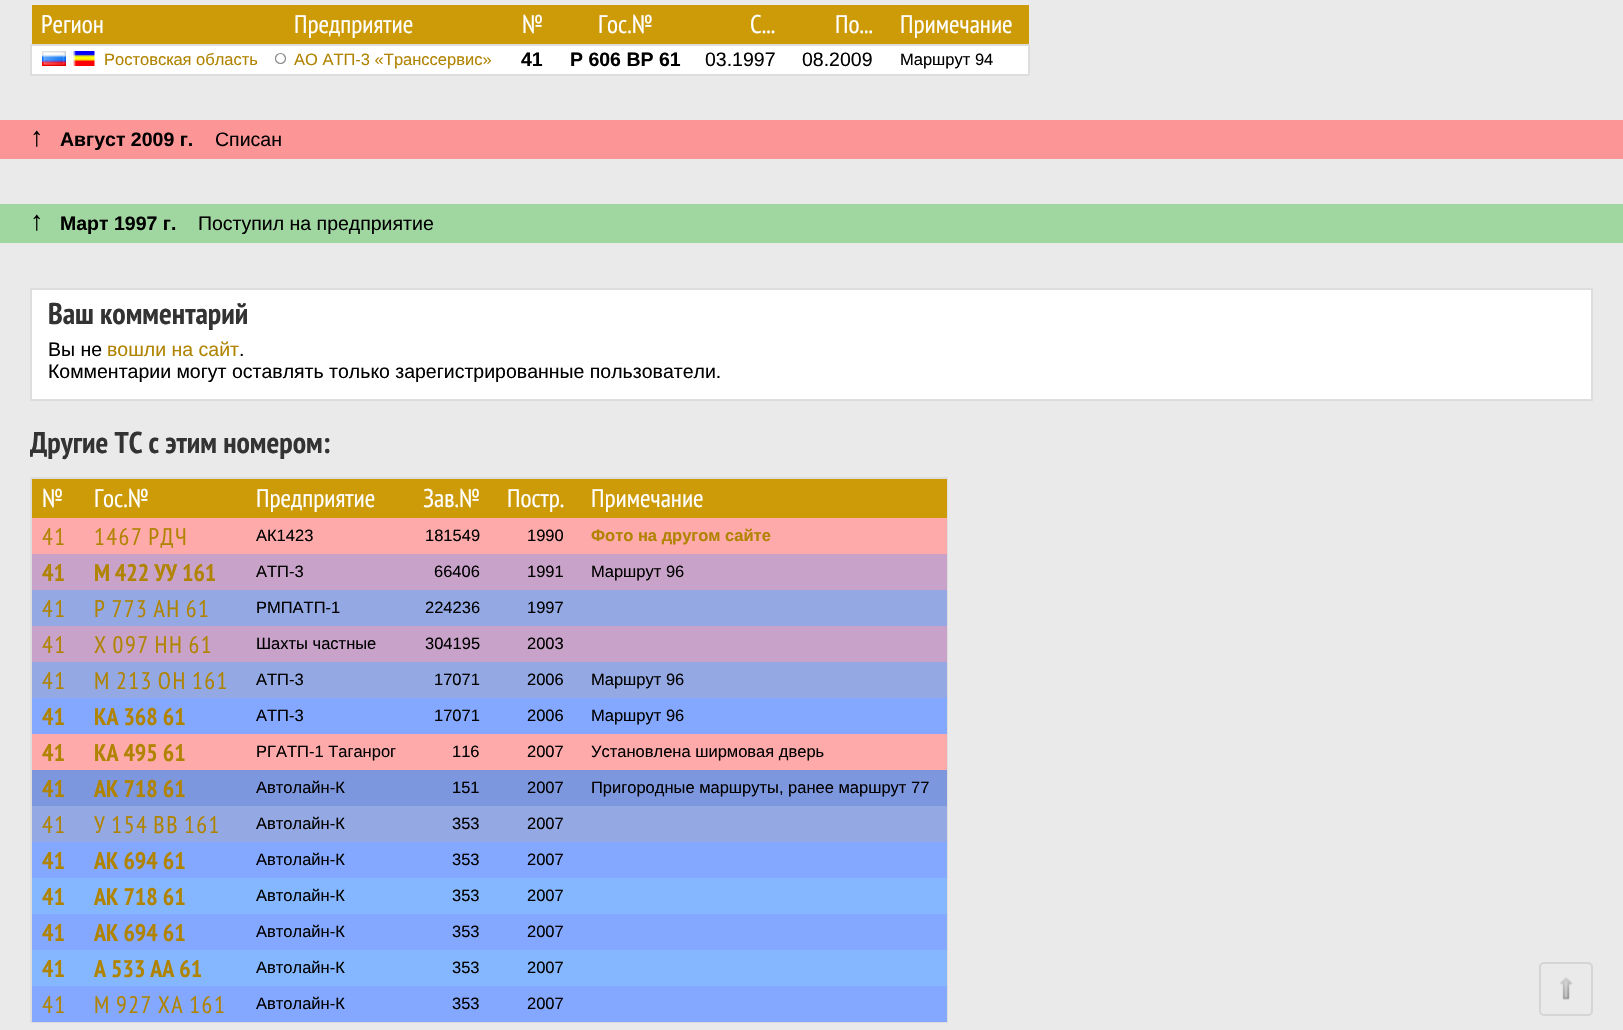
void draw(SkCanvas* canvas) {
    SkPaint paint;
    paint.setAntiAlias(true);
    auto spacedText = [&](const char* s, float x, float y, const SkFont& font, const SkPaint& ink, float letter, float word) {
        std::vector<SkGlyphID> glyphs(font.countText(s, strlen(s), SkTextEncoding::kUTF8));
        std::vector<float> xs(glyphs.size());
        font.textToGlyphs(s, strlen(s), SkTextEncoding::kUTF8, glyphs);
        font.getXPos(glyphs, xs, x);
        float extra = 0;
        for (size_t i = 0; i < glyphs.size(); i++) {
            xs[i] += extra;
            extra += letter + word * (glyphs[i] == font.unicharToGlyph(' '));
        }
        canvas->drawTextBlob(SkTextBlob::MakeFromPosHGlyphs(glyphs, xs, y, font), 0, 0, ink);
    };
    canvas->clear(0xFFEAEAEA);
    paint.setColor(0xFFCD9B08);
    canvas->drawRect(SkRect::MakeXYWH(32, 5, 997, 39), paint);
    SkFont font1(fontMgr->matchFamilyStyle("PT Sans Narrow", SkFontStyle::Normal()), 25.5f);
    font1.setSubpixel(true);
    paint.setColor(0xFFFFFFFF);
    canvas->drawString("Регион", 41, 33, font1, paint);
    canvas->drawString("Предприятие", 294, 33, font1, paint);
    canvas->drawString("№", 522, 33, font1, paint);
    canvas->drawString("Гос.№", 598, 33, font1, paint);
    canvas->drawString("С...", 750, 33, font1, paint);
    canvas->drawString("По...", 835, 33, font1, paint);
    canvas->drawString("Примечание", 900, 33, font1, paint);
    canvas->drawRect(SkRect::MakeXYWH(32, 46, 996, 28), paint);
    paint.setColor(0xFFDDDDDD);
    canvas->drawRect(SkRect::MakeXYWH(30, 44, 999, 2), paint);
    canvas->drawRect(SkRect::MakeXYWH(1028, 44, 2, 31), paint);
    canvas->drawRect(SkRect::MakeXYWH(30, 74, 999, 2), paint);
    canvas->drawRect(SkRect::MakeXYWH(30, 44, 2, 31), paint);
    canvas->drawImageRect(SkImages::DeferredFromEncodedData(SkData::MakeFromFileName("img1.png")), SkRect::MakeXYWH(42, 51, 24, 15), SkSamplingOptions());
    canvas->drawImageRect(SkImages::DeferredFromEncodedData(SkData::MakeFromFileName("img2.png")), SkRect::MakeXYWH(70, 51, 25, 15), SkSamplingOptions());
    SkFont font2(fontMgr->matchFamilyStyle("Liberation Sans", SkFontStyle::Normal()), 16.5f);
    font2.setSubpixel(true);
    paint.setColor(0xFFB08300);
    canvas->drawString("Ростовская область", 104, 65, font2, paint);
    paint.setStyle(SkPaint::kStroke_Style);
    paint.setStrokeWidth(1.2f);
    paint.setColor(0xFF888888);
    canvas->drawCircle(280.5f, 58.5f, 5, paint);
    paint.setStyle(SkPaint::kFill_Style);
    paint.setColor(0xFFB08300);
    canvas->drawString("АО АТП-3 «Транссервис»", 294, 65, font2, paint);
    SkFont font3(fontMgr->matchFamilyStyle("Liberation Sans", SkFontStyle::Bold()), 19.5f);
    font3.setSubpixel(true);
    paint.setColor(0xFF000000);
    canvas->drawString("41", 521, 66, font3, paint);
    canvas->drawString("Р 606 ВР 61", 570, 66, font3, paint);
    SkFont font4(fontMgr->matchFamilyStyle("Liberation Sans", SkFontStyle::Normal()), 19.5f);
    font4.setSubpixel(true);
    canvas->drawString("03.1997", 705, 66, font4, paint);
    canvas->drawString("08.2009", 802, 66, font4, paint);
    canvas->drawString("Маршрут 94", 900, 65, font2, paint);
    paint.setColor(0xFFFC9595);
    canvas->drawRect(SkRect::MakeXYWH(0, 120, 1623, 39), paint);
    SkFont font5(fontMgr->matchFamilyStyle("Liberation Sans", SkFontStyle::Normal()), 27);
    font5.setSubpixel(true);
    paint.setColor(0xFF000000);
    canvas->drawString("↑", 30, 146, font5, paint);
    canvas->drawString("Август 2009 г.", 60, 146, font3, paint);
    canvas->drawString("Списан", 215, 146, font4, paint);
    paint.setColor(0xFFA0D6A0);
    canvas->drawRect(SkRect::MakeXYWH(0, 204, 1623, 39), paint);
    paint.setColor(0xFF000000);
    canvas->drawString("↑", 30, 230, font5, paint);
    canvas->drawString("Март 1997 г.", 60, 230, font3, paint);
    canvas->drawString("Поступил на предприятие", 198, 230, font4, paint);
    paint.setColor(0xFFFFFFFF);
    canvas->drawRect(SkRect::MakeXYWH(31, 289, 1561, 111), paint);
    paint.setStyle(SkPaint::kStroke_Style);
    paint.setStrokeWidth(2);
    paint.setColor(0xFFDDDDDD);
    canvas->drawRect(SkRect::MakeXYWH(31, 289, 1561, 111), paint);
    SkFont font6(fontMgr->matchFamilyStyle("PT Sans Narrow", SkFontStyle::Bold()), 30);
    font6.setSubpixel(true);
    paint.setStyle(SkPaint::kFill_Style);
    paint.setColor(0xFF333333);
    canvas->drawString("Ваш комментарий", 48, 324, font6, paint);
    paint.setColor(0xFF000000);
    canvas->drawString("Вы не", 48, 356, font4, paint);
    paint.setColor(0xFFB08300);
    canvas->drawString("вошли на сайт", 107, 356, font4, paint);
    paint.setColor(0xFF000000);
    canvas->drawString(".", 239, 356, font4, paint);
    canvas->drawString("Комментарии могут оставлять только зарегистрированные пользователи.", 48, 378, font4, paint);
    paint.setColor(0xFF333333);
    canvas->drawString("Другие ТС с этим номером:", 30, 453, font6, paint);
    paint.setStyle(SkPaint::kStroke_Style);
    paint.setColor(0xFFDDDDDD);
    canvas->drawRect(SkRect::MakeXYWH(31, 478, 916, 544), paint);
    paint.setStyle(SkPaint::kFill_Style);
    paint.setColor(0xFFCD9B08);
    canvas->drawRect(SkRect::MakeXYWH(32, 479, 915, 39), paint);
    paint.setColor(0xFFFFFFFF);
    canvas->drawString("№", 42, 507, font1, paint);
    canvas->drawString("Гос.№", 94, 507, font1, paint);
    canvas->drawString("Предприятие", 256, 507, font1, paint);
    canvas->drawString("Зав.№", 423, 507, font1, paint);
    canvas->drawString("Постр.", 507, 507, font1, paint);
    canvas->drawString("Примечание", 591, 507, font1, paint);
    paint.setColor(0xFFFFAAAA);
    canvas->drawRect(SkRect::MakeXYWH(32, 518, 915, 36), paint);
    SkFont font7(fontMgr->matchFamilyStyle("PT Sans Narrow", SkFontStyle::Normal()), 24);
    font7.setSubpixel(true);
    paint.setColor(0xFFB08300);
    spacedText("41", 42, 545, font7, paint, 1.5f, 0);
    spacedText("1467 РДЧ", 94, 545, font7, paint, 1.5f, -1.5f);
    paint.setColor(0xFF000000);
    canvas->drawString("АК1423", 256, 541, font2, paint);
    canvas->drawString("181549", 425, 541, font2, paint);
    canvas->drawString("1990", 527, 541, font2, paint);
    SkFont font8(fontMgr->matchFamilyStyle("Liberation Sans", SkFontStyle::Bold()), 16.5f);
    font8.setSubpixel(true);
    paint.setColor(0xFFB08300);
    canvas->drawString("Фото на другом сайте", 591, 541, font8, paint);
    paint.setColor(0xFFC8A2C8);
    canvas->drawRect(SkRect::MakeXYWH(32, 554, 915, 36), paint);
    SkFont font9(fontMgr->matchFamilyStyle("PT Sans Narrow", SkFontStyle::Bold()), 24);
    font9.setSubpixel(true);
    paint.setColor(0xFFB08300);
    canvas->drawString("41", 42, 581, font9, paint);
    canvas->drawString("М 422 УУ 161", 94, 581, font9, paint);
    paint.setColor(0xFF000000);
    canvas->drawString("АТП-3", 256, 577, font2, paint);
    canvas->drawString("66406", 434, 577, font2, paint);
    canvas->drawString("1991", 527, 577, font2, paint);
    canvas->drawString("Маршрут 96", 591, 577, font2, paint);
    paint.setColor(0xFF94A9E3);
    canvas->drawRect(SkRect::MakeXYWH(32, 590, 915, 36), paint);
    paint.setColor(0xFFB08300);
    spacedText("41", 42, 617, font7, paint, 1.5f, 0);
    spacedText("Р 773 АН 61", 94, 617, font7, paint, 1.5f, -1.5f);
    paint.setColor(0xFF000000);
    canvas->drawString("РМПАТП-1", 256, 613, font2, paint);
    canvas->drawString("224236", 425, 613, font2, paint);
    canvas->drawString("1997", 527, 613, font2, paint);
    paint.setColor(0xFFC8A2C8);
    canvas->drawRect(SkRect::MakeXYWH(32, 626, 915, 36), paint);
    paint.setColor(0xFFB08300);
    spacedText("41", 42, 653, font7, paint, 1.5f, 0);
    spacedText("Х 097 НН 61", 94, 653, font7, paint, 1.5f, -1.5f);
    paint.setColor(0xFF000000);
    canvas->drawString("Шахты частные", 256, 649, font2, paint);
    canvas->drawString("304195", 425, 649, font2, paint);
    canvas->drawString("2003", 527, 649, font2, paint);
    paint.setColor(0xFF94A9E3);
    canvas->drawRect(SkRect::MakeXYWH(32, 662, 915, 36), paint);
    paint.setColor(0xFFB08300);
    spacedText("41", 42, 689, font7, paint, 1.5f, 0);
    spacedText("М 213 ОН 161", 94, 689, font7, paint, 1.5f, -1.5f);
    paint.setColor(0xFF000000);
    canvas->drawString("АТП-3", 256, 685, font2, paint);
    canvas->drawString("17071", 434, 685, font2, paint);
    canvas->drawString("2006", 527, 685, font2, paint);
    canvas->drawString("Маршрут 96", 591, 685, font2, paint);
    paint.setColor(0xFF84A8FF);
    canvas->drawRect(SkRect::MakeXYWH(32, 698, 915, 36), paint);
    paint.setColor(0xFFB08300);
    canvas->drawString("41", 42, 725, font9, paint);
    canvas->drawString("КА 368 61", 94, 725, font9, paint);
    paint.setColor(0xFF000000);
    canvas->drawString("АТП-3", 256, 721, font2, paint);
    canvas->drawString("17071", 434, 721, font2, paint);
    canvas->drawString("2006", 527, 721, font2, paint);
    canvas->drawString("Маршрут 96", 591, 721, font2, paint);
    paint.setColor(0xFFFFAAAA);
    canvas->drawRect(SkRect::MakeXYWH(32, 734, 915, 36), paint);
    paint.setColor(0xFFB08300);
    canvas->drawString("41", 42, 761, font9, paint);
    canvas->drawString("КА 495 61", 94, 761, font9, paint);
    paint.setColor(0xFF000000);
    canvas->drawString("РГАТП-1 Таганрог", 256, 757, font2, paint);
    canvas->drawString("116", 452, 757, font2, paint);
    canvas->drawString("2007", 527, 757, font2, paint);
    canvas->drawString("Установлена ширмовая дверь", 591, 757, font2, paint);
    paint.setColor(0xFF7D97DF);
    canvas->drawRect(SkRect::MakeXYWH(32, 770, 915, 36), paint);
    paint.setColor(0xFFB08300);
    canvas->drawString("41", 42, 797, font9, paint);
    canvas->drawString("АК 718 61", 94, 797, font9, paint);
    paint.setColor(0xFF000000);
    canvas->drawString("Автолайн-К", 256, 793, font2, paint);
    canvas->drawString("151", 452, 793, font2, paint);
    canvas->drawString("2007", 527, 793, font2, paint);
    canvas->drawString("Пригородные маршруты, ранее маршрут 77", 591, 793, font2, paint);
    paint.setColor(0xFF94A9E3);
    canvas->drawRect(SkRect::MakeXYWH(32, 806, 915, 36), paint);
    paint.setColor(0xFFB08300);
    spacedText("41", 42, 833, font7, paint, 1.5f, 0);
    spacedText("У 154 ВВ 161", 94, 833, font7, paint, 1.5f, -1.5f);
    paint.setColor(0xFF000000);
    canvas->drawString("Автолайн-К", 256, 829, font2, paint);
    canvas->drawString("353", 452, 829, font2, paint);
    canvas->drawString("2007", 527, 829, font2, paint);
    paint.setColor(0xFF84A8FF);
    canvas->drawRect(SkRect::MakeXYWH(32, 842, 915, 36), paint);
    paint.setColor(0xFFB08300);
    canvas->drawString("41", 42, 869, font9, paint);
    canvas->drawString("АК 694 61", 94, 869, font9, paint);
    paint.setColor(0xFF000000);
    canvas->drawString("Автолайн-К", 256, 865, font2, paint);
    canvas->drawString("353", 452, 865, font2, paint);
    canvas->drawString("2007", 527, 865, font2, paint);
    paint.setColor(0xFF84B7FF);
    canvas->drawRect(SkRect::MakeXYWH(32, 878, 915, 36), paint);
    paint.setColor(0xFFB08300);
    canvas->drawString("41", 42, 905, font9, paint);
    canvas->drawString("АК 718 61", 94, 905, font9, paint);
    paint.setColor(0xFF000000);
    canvas->drawString("Автолайн-К", 256, 901, font2, paint);
    canvas->drawString("353", 452, 901, font2, paint);
    canvas->drawString("2007", 527, 901, font2, paint);
    paint.setColor(0xFF84A8FF);
    canvas->drawRect(SkRect::MakeXYWH(32, 914, 915, 36), paint);
    paint.setColor(0xFFB08300);
    canvas->drawString("41", 42, 941, font9, paint);
    canvas->drawString("АК 694 61", 94, 941, font9, paint);
    paint.setColor(0xFF000000);
    canvas->drawString("Автолайн-К", 256, 937, font2, paint);
    canvas->drawString("353", 452, 937, font2, paint);
    canvas->drawString("2007", 527, 937, font2, paint);
    paint.setColor(0xFF84B7FF);
    canvas->drawRect(SkRect::MakeXYWH(32, 950, 915, 36), paint);
    paint.setColor(0xFFB08300);
    canvas->drawString("41", 42, 977, font9, paint);
    canvas->drawString("А 533 АА 61", 94, 977, font9, paint);
    paint.setColor(0xFF000000);
    canvas->drawString("Автолайн-К", 256, 973, font2, paint);
    canvas->drawString("353", 452, 973, font2, paint);
    canvas->drawString("2007", 527, 973, font2, paint);
    paint.setColor(0xFF84A8FF);
    canvas->drawRect(SkRect::MakeXYWH(32, 986, 915, 36), paint);
    paint.setColor(0xFFB08300);
    spacedText("41", 42, 1013, font7, paint, 1.5f, 0);
    spacedText("М 927 ХА 161", 94, 1013, font7, paint, 1.5f, -1.5f);
    paint.setColor(0xFF000000);
    canvas->drawString("Автолайн-К", 256, 1009, font2, paint);
    canvas->drawString("353", 452, 1009, font2, paint);
    canvas->drawString("2007", 527, 1009, font2, paint);
    canvas->drawImageRect(SkImages::DeferredFromEncodedData(SkData::MakeFromFileName("img3.png")), SkRect::MakeXYWH(1560, 977, 13, 23), SkSamplingOptions());
    paint.setStyle(SkPaint::kStroke_Style);
    paint.setColor(0xFFD5D5D5);
    canvas->drawRoundRect(SkRect::MakeXYWH(1540, 963, 52, 52), 4, 4, paint);
}
